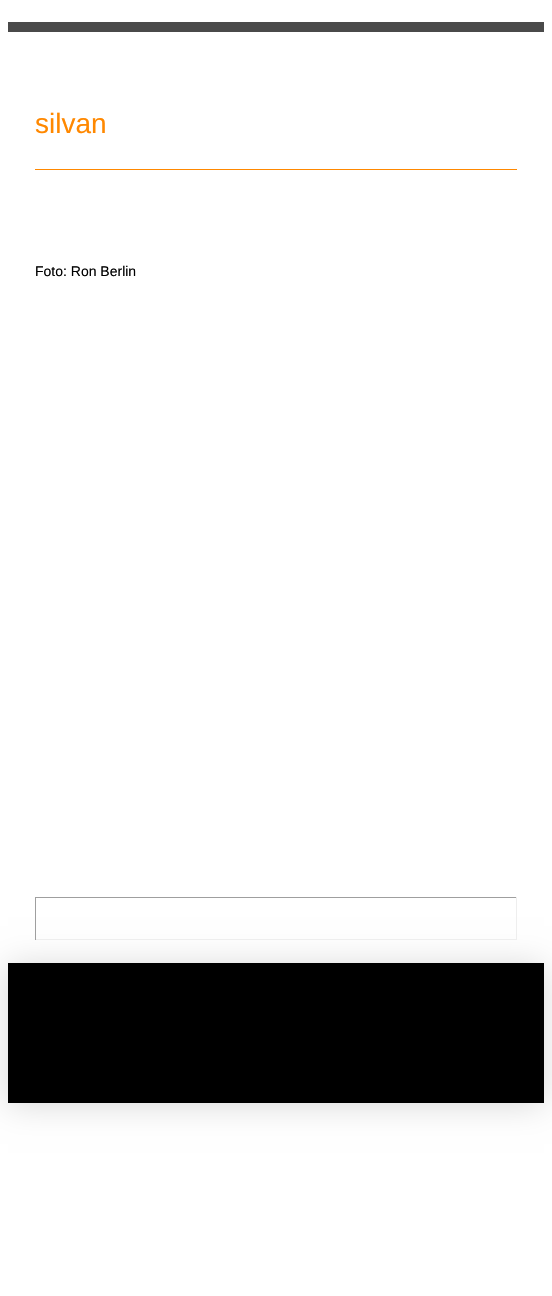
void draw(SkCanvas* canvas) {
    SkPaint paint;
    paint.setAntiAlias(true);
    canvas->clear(0xFFFFFFFF);
    paint.setColor(0xFF4A4A4A);
    canvas->drawRect(SkRect::MakeXYWH(8, 22, 536, 10), paint);
    SkFont font1(fontMgr->matchFamilyStyle("Liberation Sans", SkFontStyle::Normal()), 28);
    font1.setSubpixel(true);
    paint.setColor(0xFFFF8800);
    canvas->drawString("silvan", 35, 133, font1, paint);
    canvas->drawRect(SkRect::MakeXYWH(35, 169, 482, 1), paint);
    SkFont font2(fontMgr->matchFamilyStyle("Liberation Sans", SkFontStyle::Normal()), 14);
    font2.setSubpixel(true);
    paint.setColor(0xFF000000);
    canvas->drawString("Foto: Ron Berlin", 35, 276, font2, paint);
    paint.setColor(0xFF9F9F9F);
    canvas->drawRect(SkRect::MakeXYWH(35, 897, 482, 1), paint);
    paint.setColor(0x26000000);
    paint.setMaskFilter(SkMaskFilter::MakeBlur(kNormal_SkBlurStyle, 16));
    canvas->drawRect(SkRect::MakeXYWH(8, 965, 536, 140), paint);
    paint.setMaskFilter(nullptr);
    paint.setColor(0xFFEEEEEE);
    canvas->drawRect(SkRect::MakeXYWH(516, 897, 1, 43), paint);
    canvas->drawRect(SkRect::MakeXYWH(35, 939, 482, 1), paint);
    paint.setColor(0xFF9F9F9F);
    canvas->drawRect(SkRect::MakeXYWH(35, 897, 1, 43), paint);
    paint.setColor(0xFF000000);
    canvas->drawRect(SkRect::MakeXYWH(8, 963, 536, 140), paint);
}
